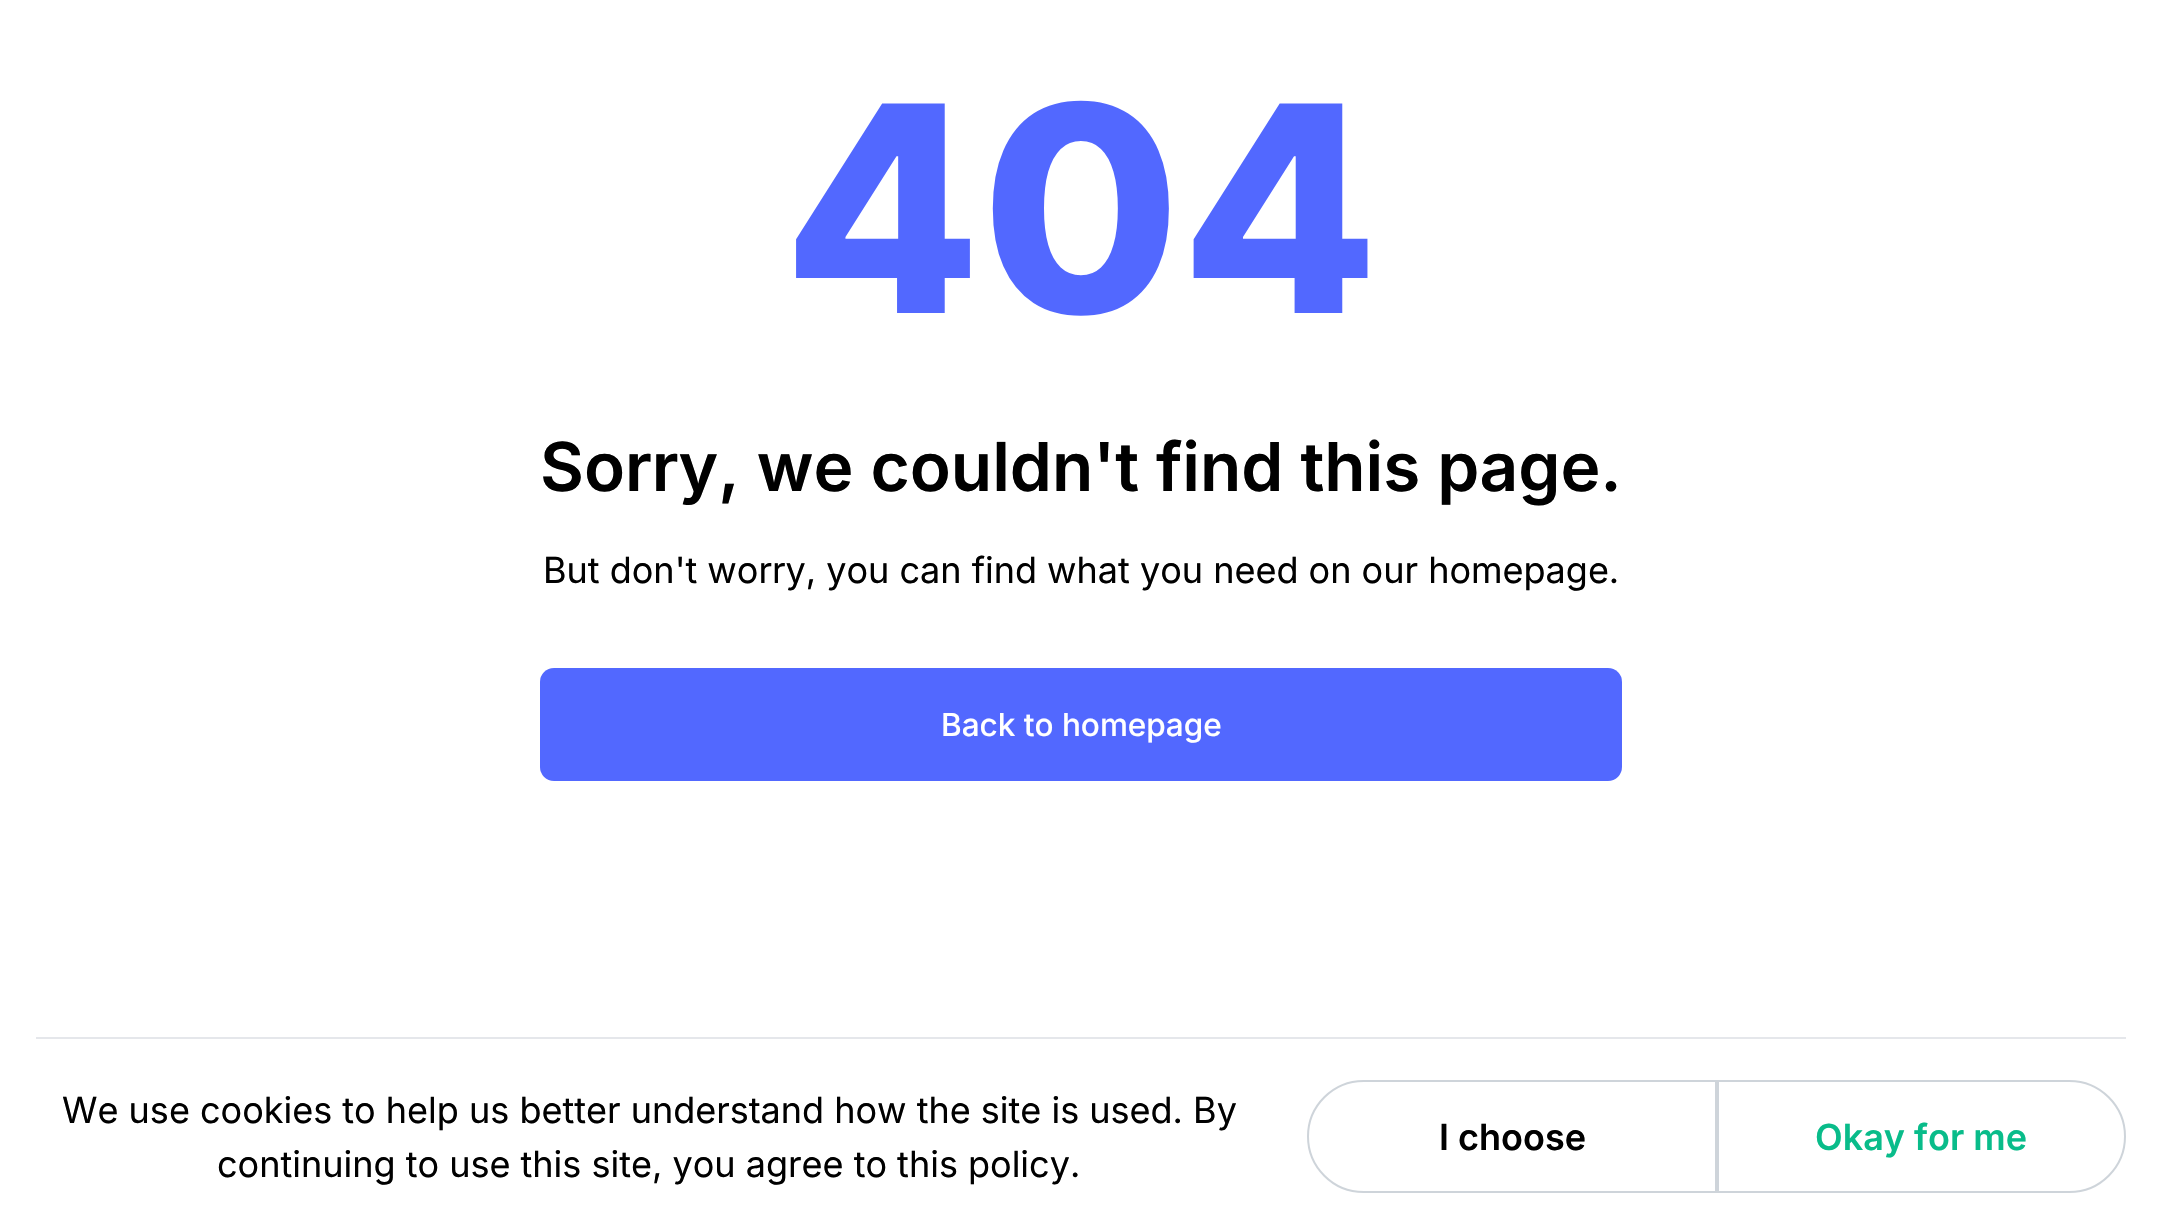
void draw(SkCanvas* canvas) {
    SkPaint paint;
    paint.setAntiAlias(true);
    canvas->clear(0xFFFFFFFF);
    SkFont font1(fontMgr->matchFamilyStyle("Inter", SkFontStyle(800, SkFontStyle::kNormal_Width, SkFontStyle::kUpright_Slant)), 288);
    font1.setSubpixel(true);
    paint.setColor(0xFF5268FF);
    canvas->drawString("404", 783, 313, font1, paint);
    SkFont font2(fontMgr->matchFamilyStyle("Inter", SkFontStyle(600, SkFontStyle::kNormal_Width, SkFontStyle::kUpright_Slant)), 67.5f);
    font2.setSubpixel(true);
    paint.setColor(0xFF000000);
    canvas->drawString("Sorry, we couldn't find this page.", 540, 491, font2, paint);
    SkFont font3(fontMgr->matchFamilyStyle("Inter", SkFontStyle::Normal()), 36);
    font3.setSubpixel(true);
    canvas->drawString("But don't worry, you can find what you need on our homepage.", 543, 583, font3, paint);
    paint.setColor(0xFF5268FF);
    canvas->drawRoundRect(SkRect::MakeXYWH(540, 668, 1082, 113), 14, 14, paint);
    SkFont font4(fontMgr->matchFamilyStyle("Inter", SkFontStyle(500, SkFontStyle::kNormal_Width, SkFontStyle::kUpright_Slant)), 31.5f);
    font4.setSubpixel(true);
    paint.setColor(0xFFFFFFFF);
    canvas->drawString("Back to homepage", 941, 736, font4, paint);
    paint.setColor(0xFFE5E7EB);
    canvas->drawRect(SkRect::MakeXYWH(36, 1037, 2090, 2), paint);
    paint.setColor(0xFF000000);
    canvas->drawString("We use cookies to help us better understand how the site is used. By", 62, 1123, font3, paint);
    canvas->drawString("continuing to use this site, you agree to this policy.", 217, 1177, font3, paint);
    paint.setStyle(SkPaint::kStroke_Style);
    paint.setStrokeWidth(2);
    paint.setColor(0xFFCED4DA);
    canvas->drawPath(SkPathBuilder().moveTo(1363.5f, 1081).lineTo(1716, 1081).lineTo(1716, 1192).lineTo(1363.5f, 1192).cubicTo(1333, 1192, 1308, 1167, 1308, 1136.5f).cubicTo(1308, 1106, 1333, 1081, 1363.5f, 1081).close().detach(), paint);
    SkFont font5(fontMgr->matchFamilyStyle("Inter", SkFontStyle(600, SkFontStyle::kNormal_Width, SkFontStyle::kUpright_Slant)), 36);
    font5.setSubpixel(true);
    paint.setStyle(SkPaint::kFill_Style);
    paint.setColor(0xFF000000);
    canvas->drawString("I choose", 1439, 1150, font5, paint);
    paint.setStyle(SkPaint::kStroke_Style);
    paint.setColor(0xFFCED4DA);
    canvas->drawPath(SkPathBuilder().moveTo(1718, 1081).lineTo(2069.5f, 1081).cubicTo(2100, 1081, 2125, 1106, 2125, 1136.5f).cubicTo(2125, 1167, 2100, 1192, 2069.5f, 1192).lineTo(1718, 1192).close().detach(), paint);
    paint.setStyle(SkPaint::kFill_Style);
    paint.setColor(0xFF09BC8A);
    canvas->drawString("Okay for me", 1815, 1150, font5, paint);
}
